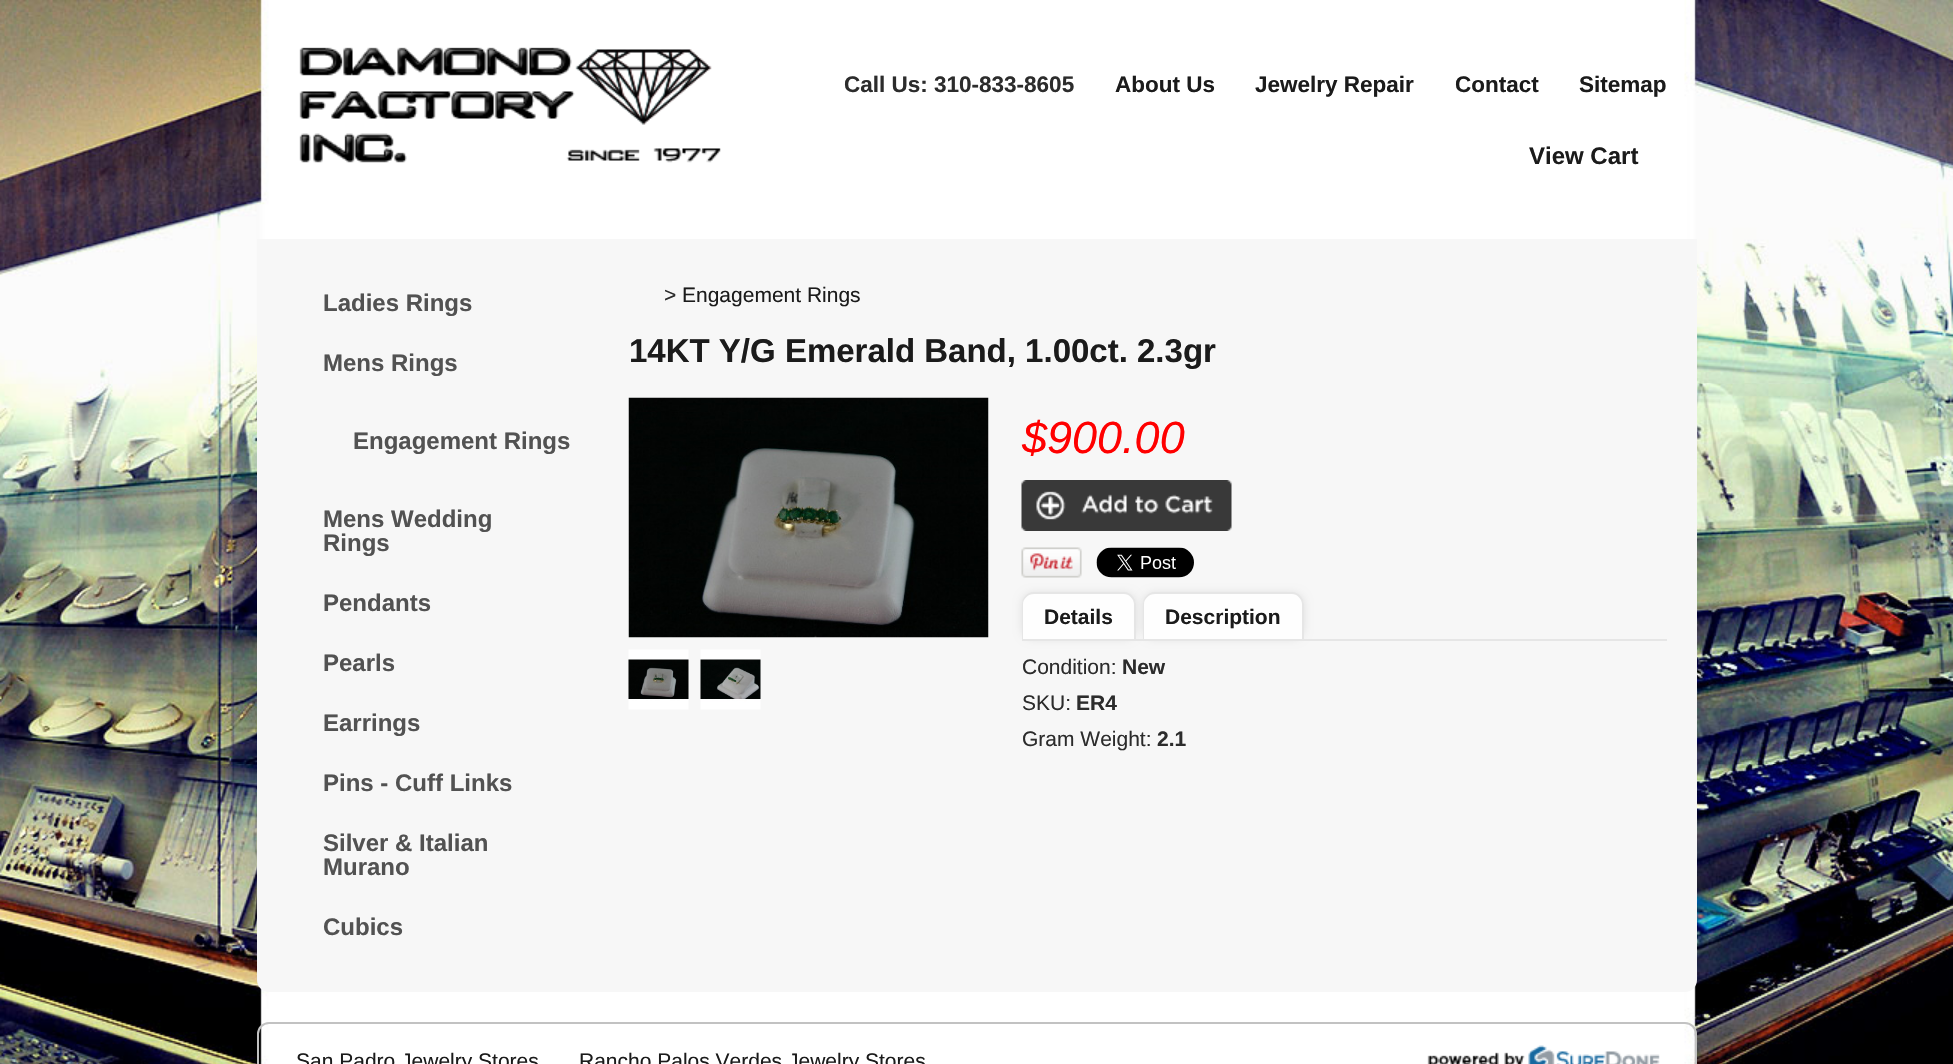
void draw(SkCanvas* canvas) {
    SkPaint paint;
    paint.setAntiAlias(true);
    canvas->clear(0xFFFFFFFF);
    canvas->drawImageRect(SkImages::DeferredFromEncodedData(SkData::MakeFromFileName("img1.png")), SkRect::MakeXYWH(0, 0, 1953, 1064), SkSamplingOptions());
    canvas->drawImageRect(SkImages::DeferredFromEncodedData(SkData::MakeFromFileName("img2.png")), SkRect::MakeXYWH(299, 47, 422, 116), SkSamplingOptions());
    SkFont font1(fontMgr->matchFamilyStyle("Liberation Sans", SkFontStyle::Bold()), 22.5f);
    font1.setSubpixel(true);
    paint.setColor(0xFF2C2C2C);
    canvas->drawString("Call Us: 310-833-8605", 844, 92, font1, paint);
    paint.setColor(0xFF1B1B1B);
    canvas->drawString("About Us", 1115, 92, font1, paint);
    canvas->drawString("Jewelry Repair", 1255, 92, font1, paint);
    canvas->drawString("Contact", 1455, 92, font1, paint);
    canvas->drawString("Sitemap", 1579, 92, font1, paint);
    SkFont font2(fontMgr->matchFamilyStyle("Liberation Sans", SkFontStyle::Bold()), 24);
    font2.setSubpixel(true);
    canvas->drawString("View Cart", 1529, 164, font2, paint);
    paint.setColor(0xFFF7F7F7);
    canvas->drawPath(SkPathBuilder().moveTo(257, 239).lineTo(1697, 239).lineTo(1697, 980).cubicTo(1697, 986.5f, 1691.5f, 992, 1685, 992).lineTo(269, 992).cubicTo(262.5f, 992, 257, 986.5f, 257, 980).close().detach(), paint);
    paint.setColor(0xFF525252);
    canvas->drawString("Ladies Rings", 323, 311, font2, paint);
    canvas->drawString("Mens Rings", 323, 371, font2, paint);
    canvas->drawString("Engagement Rings", 353, 449, font2, paint);
    canvas->drawString("Mens Wedding", 323, 527, font2, paint);
    canvas->drawString("Rings", 323, 551, font2, paint);
    canvas->drawString("Pendants", 323, 611, font2, paint);
    canvas->drawString("Pearls", 323, 671, font2, paint);
    canvas->drawString("Earrings", 323, 731, font2, paint);
    canvas->drawString("Pins - Cuff Links", 323, 791, font2, paint);
    canvas->drawString("Silver & Italian", 323, 851, font2, paint);
    canvas->drawString("Murano", 323, 875, font2, paint);
    canvas->drawString("Cubics", 323, 935, font2, paint);
    SkFont font3(fontMgr->matchFamilyStyle("Liberation Sans", SkFontStyle::Normal()), 21);
    font3.setSubpixel(true);
    paint.setColor(0xFF2C2C2C);
    canvas->drawString(">", 664, 302, font3, paint);
    paint.setColor(0xFF1B1B1B);
    canvas->drawString("Engagement Rings", 682, 302, font3, paint);
    SkFont font4(fontMgr->matchFamilyStyle("Liberation Sans", SkFontStyle::Bold()), 33);
    font4.setSubpixel(true);
    canvas->drawString("14KT Y/G Emerald Band, 1.00ct. 2.3gr", 629, 362, font4, paint);
    canvas->drawImageRect(SkImages::DeferredFromEncodedData(SkData::MakeFromFileName("img3.png")), SkRect::MakeXYWH(628, 397, 361, 241), SkSamplingOptions());
    canvas->drawImageRect(SkImages::DeferredFromEncodedData(SkData::MakeFromFileName("img4.png")), SkRect::MakeXYWH(628, 649, 61, 61), SkSamplingOptions());
    canvas->drawImageRect(SkImages::DeferredFromEncodedData(SkData::MakeFromFileName("img5.png")), SkRect::MakeXYWH(700, 649, 61, 61), SkSamplingOptions());
    SkFont font5(fontMgr->matchFamilyStyle("Liberation Sans", SkFontStyle::Italic()), 45);
    font5.setSubpixel(true);
    paint.setColor(0xFFFF0000);
    canvas->drawString("$900.00", 1022, 453, font5, paint);
    canvas->drawImageRect(SkImages::DeferredFromEncodedData(SkData::MakeFromFileName("img6.png")), SkRect::MakeXYWH(1021, 480, 211, 51), SkSamplingOptions());
    canvas->drawImageRect(SkImages::DeferredFromEncodedData(SkData::MakeFromFileName("img7.png")), SkRect::MakeXYWH(1021, 547, 61, 31), SkSamplingOptions());
    canvas->drawImageRect(SkImages::DeferredFromEncodedData(SkData::MakeFromFileName("img8.png")), SkRect::MakeXYWH(1096, 547, 98, 31), SkSamplingOptions());
    paint.setColor(0xFFDEDEDE);
    paint.setMaskFilter(SkMaskFilter::MakeBlur(kNormal_SkBlurStyle, 4));
    canvas->drawRoundRect(SkRect::MakeXYWH(1022, 593, 114, 46), 12, 12, paint);
    paint.setMaskFilter(nullptr);
    paint.setColor(0xFFFEFEFE);
    canvas->drawPath(SkPathBuilder().moveTo(1034, 593).lineTo(1124, 593).cubicTo(1130.5f, 593, 1136, 598.5f, 1136, 605).lineTo(1136, 639).lineTo(1022, 639).lineTo(1022, 605).cubicTo(1022, 598.5f, 1027.5f, 593, 1034, 593).close().detach(), paint);
    paint.setColor(0xFFE6E6E6);
    canvas->drawPath(SkPathBuilder(SkPathFillType::kEvenOdd).moveTo(1034, 592).lineTo(1124, 592).cubicTo(1130, 592, 1136, 598, 1136, 604).lineTo(1136, 639).lineTo(1022, 639).lineTo(1022, 604).cubicTo(1022, 598, 1027, 592, 1034, 592).close().moveTo(1034, 594).lineTo(1124, 594).cubicTo(1129, 594, 1134, 599, 1134, 604).lineTo(1134, 639).lineTo(1023, 639).lineTo(1023, 604).cubicTo(1023, 599, 1028, 594, 1034, 594).close().detach(), paint);
    SkFont font6(fontMgr->matchFamilyStyle("Liberation Sans", SkFontStyle::Bold()), 21);
    font6.setSubpixel(true);
    paint.setColor(0xFF1B1B1B);
    canvas->drawString("Details", 1044, 624, font6, paint);
    paint.setColor(0xFFDEDEDE);
    paint.setMaskFilter(SkMaskFilter::MakeBlur(kNormal_SkBlurStyle, 4));
    canvas->drawRoundRect(SkRect::MakeXYWH(1143, 593, 161, 46), 12, 12, paint);
    paint.setMaskFilter(nullptr);
    paint.setColor(0xFFFEFEFE);
    canvas->drawPath(SkPathBuilder().moveTo(1155, 593).lineTo(1292, 593).cubicTo(1298.5f, 593, 1304, 598.5f, 1304, 605).lineTo(1304, 639).lineTo(1143, 639).lineTo(1143, 605).cubicTo(1143, 598.5f, 1148.5f, 593, 1155, 593).close().detach(), paint);
    paint.setColor(0xFFE6E6E6);
    canvas->drawPath(SkPathBuilder(SkPathFillType::kEvenOdd).moveTo(1155, 592).lineTo(1292, 592).cubicTo(1298, 592, 1304, 598, 1304, 604).lineTo(1304, 639).lineTo(1143, 639).lineTo(1143, 604).cubicTo(1143, 598, 1148, 592, 1155, 592).close().moveTo(1155, 594).lineTo(1292, 594).cubicTo(1297, 594, 1302, 599, 1302, 604).lineTo(1302, 639).lineTo(1144, 639).lineTo(1144, 604).cubicTo(1144, 599, 1149, 594, 1155, 594).close().detach(), paint);
    paint.setColor(0xFF1B1B1B);
    canvas->drawString("Description", 1165, 624, font6, paint);
    paint.setColor(0xFFE6E6E6);
    canvas->drawRect(SkRect::MakeXYWH(1022, 639, 645, 2), paint);
    paint.setColor(0xFF2C2C2C);
    canvas->drawString("Condition:", 1022, 674, font3, paint);
    canvas->drawString("New", 1122, 674, font6, paint);
    canvas->drawString("SKU:", 1022, 710, font3, paint);
    canvas->drawString("ER4", 1076, 710, font6, paint);
    canvas->drawString("Gram Weight:", 1022, 746, font3, paint);
    canvas->drawString("2.1", 1157, 746, font6, paint);
    paint.setStyle(SkPaint::kStroke_Style);
    paint.setStrokeWidth(2);
    paint.setColor(0xFFC2C2C2);
    canvas->drawRoundRect(SkRect::MakeXYWH(258, 1023, 1438, 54), 11, 11, paint);
    paint.setStyle(SkPaint::kFill_Style);
    paint.setColor(0xFF1B1B1B);
    canvas->drawString("San Padro Jewelry Stores", 296, 1068, font3, paint);
    canvas->drawString("Rancho Palos Verdes Jewelry Stores", 579, 1068, font3, paint);
    canvas->drawImageRect(SkImages::DeferredFromEncodedData(SkData::MakeFromFileName("img9.png")), SkRect::MakeXYWH(1427, 1045, 233, 19), SkSamplingOptions());
}
